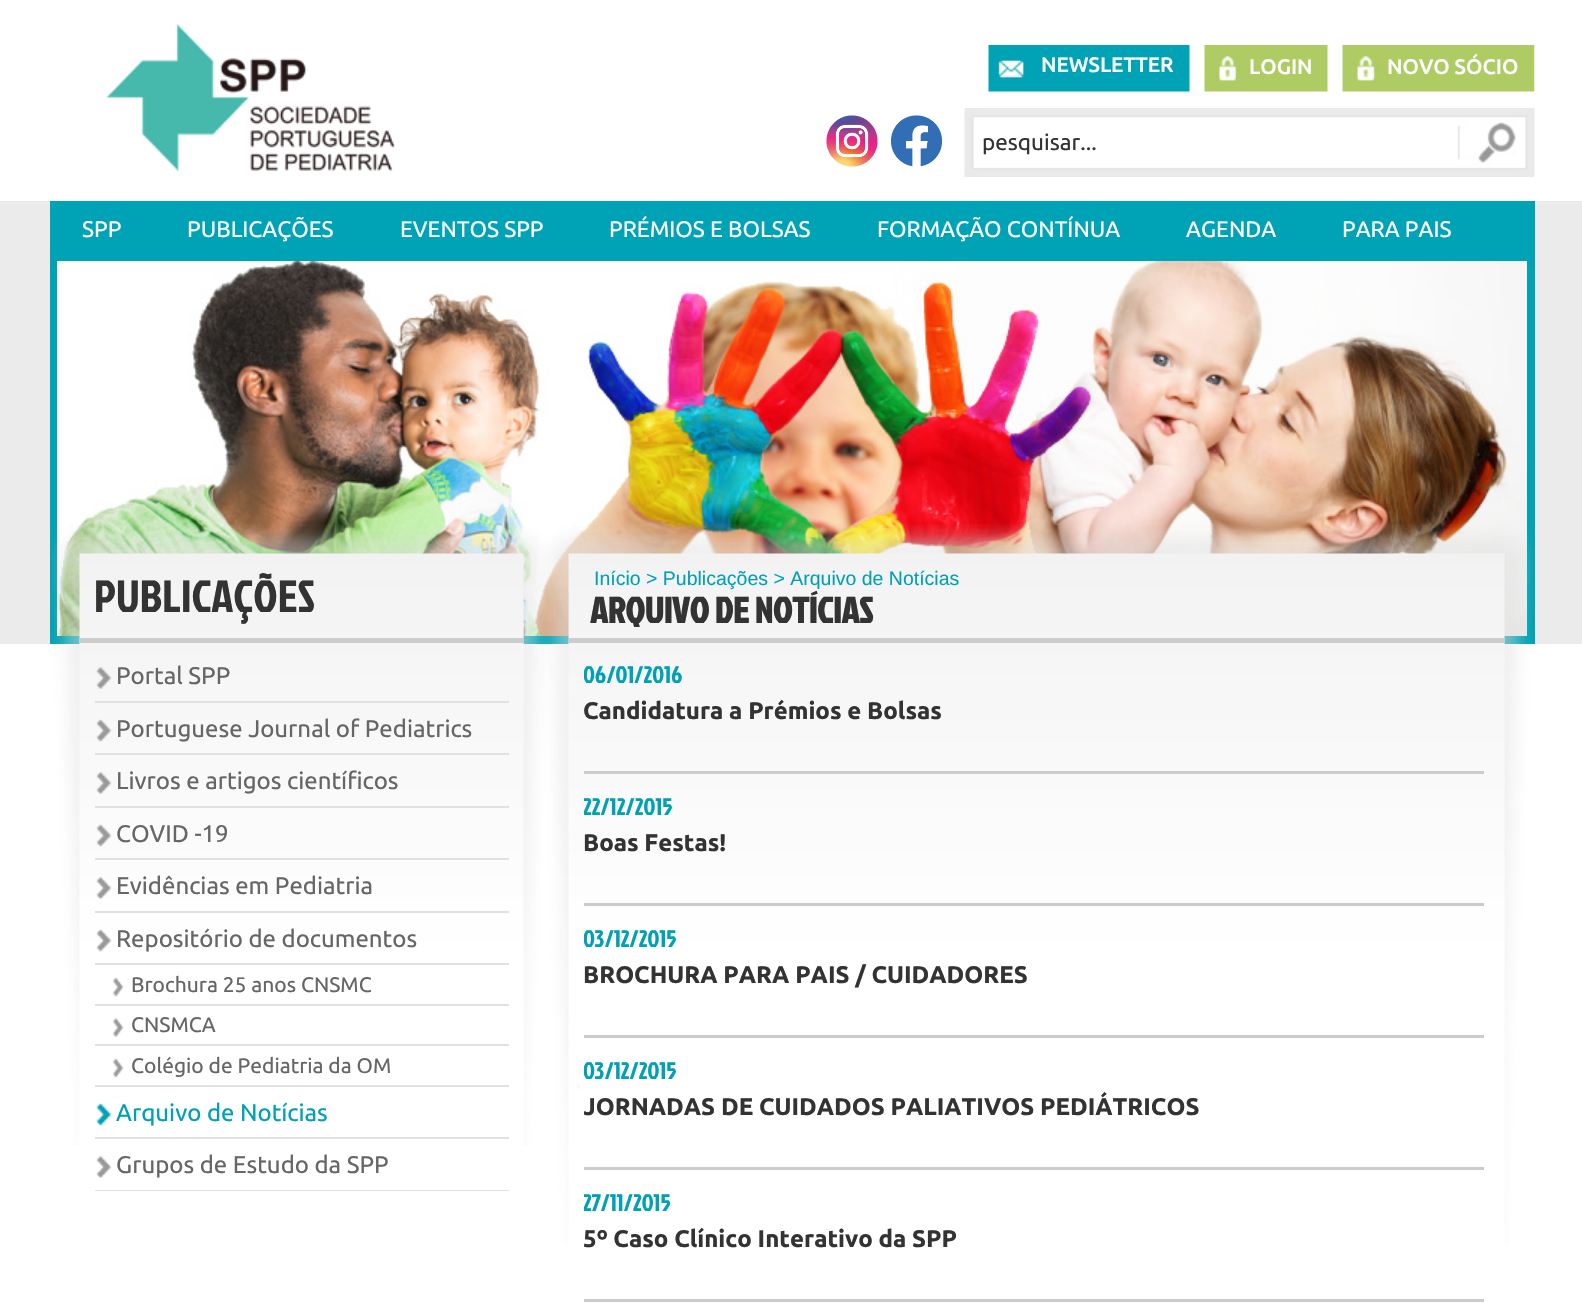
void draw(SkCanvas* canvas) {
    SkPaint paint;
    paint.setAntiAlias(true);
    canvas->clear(0xFFFFFFFF);
    paint.setColor(0xFFEBEBEB);
    canvas->drawRect(SkRect::MakeXYWH(0, 201, 1582, 443), paint);
    canvas->drawImageRect(SkImages::DeferredFromEncodedData(SkData::MakeFromFileName("img1.png")), SkRect::MakeXYWH(106, 24, 289, 147), SkSamplingOptions());
    canvas->drawImageRect(SkImages::DeferredFromEncodedData(SkData::MakeFromFileName("img2.png")), SkRect::MakeXYWH(988, 45, 202, 47), SkSamplingOptions());
    SkFont font1(fontMgr->matchFamilyStyle("Ubuntu", SkFontStyle(500, SkFontStyle::kNormal_Width, SkFontStyle::kUpright_Slant)), 21);
    font1.setSubpixel(true);
    paint.setColor(0xFFFFFFFF);
    canvas->drawString("NEWSLETTER", 1041, 72, font1, paint);
    canvas->drawImageRect(SkImages::DeferredFromEncodedData(SkData::MakeFromFileName("img3.png")), SkRect::MakeXYWH(1204, 45, 124, 47), SkSamplingOptions());
    canvas->drawString("LOGIN", 1249, 74, font1, paint);
    canvas->drawImageRect(SkImages::DeferredFromEncodedData(SkData::MakeFromFileName("img4.png")), SkRect::MakeXYWH(1342, 45, 193, 47), SkSamplingOptions());
    canvas->drawString("NOVO SÓCIO", 1387, 74, font1, paint);
    canvas->drawImageRect(SkImages::DeferredFromEncodedData(SkData::MakeFromFileName("img5.png")), SkRect::MakeXYWH(826, 115, 52, 52), SkSamplingOptions());
    canvas->drawImageRect(SkImages::DeferredFromEncodedData(SkData::MakeFromFileName("img6.png")), SkRect::MakeXYWH(891, 115, 51, 52), SkSamplingOptions());
    canvas->drawImageRect(SkImages::DeferredFromEncodedData(SkData::MakeFromFileName("img7.png")), SkRect::MakeXYWH(964, 108, 571, 69), SkSamplingOptions());
    SkFont font2(fontMgr->matchFamilyStyle("Ubuntu", SkFontStyle::Normal()), 22.5f);
    font2.setSubpixel(true);
    paint.setColor(0xFF333333);
    canvas->drawString("pesquisar...", 982, 150, font2, paint);
    paint.setColor(0xFF00A2B5);
    canvas->drawRect(SkRect::MakeXYWH(50, 201, 1485, 443), paint);
    canvas->drawImageRect(SkImages::DeferredFromEncodedData(SkData::MakeFromFileName("img8.png")), SkRect::MakeXYWH(57, 261, 1470, 375), SkSamplingOptions());
    paint.setColor(0xFFFFFFFF);
    canvas->drawString("SPP", 82, 237, font2, paint);
    canvas->drawString("PUBLICAÇÕES", 187, 237, font2, paint);
    canvas->drawString("EVENTOS SPP", 400, 237, font2, paint);
    canvas->drawString("PRÉMIOS E BOLSAS", 609, 237, font2, paint);
    canvas->drawString("FORMAÇÃO CONTÍNUA", 877, 237, font2, paint);
    canvas->drawString("AGENDA", 1186, 237, font2, paint);
    canvas->drawString("PARA PAIS", 1342, 237, font2, paint);
    canvas->drawImageRect(SkImages::DeferredFromEncodedData(SkData::MakeFromFileName("img9.png")), SkRect::MakeXYWH(50, 524, 501, 622), SkSamplingOptions());
    paint.setColor(0xFFCCCCCC);
    canvas->drawRect(SkRect::MakeXYWH(80, 638, 444, 5), paint);
    SkFont font3(fontMgr->matchFamilyStyle("Jockey One", SkFontStyle::Normal()), 45);
    font3.setSubpixel(true);
    paint.setColor(0xFF333333);
    canvas->drawString("PUBLICAÇÕES", 94, 612, font3, paint);
    canvas->drawImageRect(SkImages::DeferredFromEncodedData(SkData::MakeFromFileName("img10.png")), SkRect::MakeXYWH(96, 667, 16, 22), SkSamplingOptions());
    paint.setColor(0xFFE1E1E1);
    canvas->drawRect(SkRect::MakeXYWH(95, 701, 414, 2), paint);
    SkFont font4(fontMgr->matchFamilyStyle("Ubuntu", SkFontStyle::Normal()), 24);
    font4.setSubpixel(true);
    paint.setColor(0xFF666666);
    canvas->drawString("Portal SPP", 116, 684, font4, paint);
    canvas->drawImageRect(SkImages::DeferredFromEncodedData(SkData::MakeFromFileName("img11.png")), SkRect::MakeXYWH(96, 719, 16, 23), SkSamplingOptions());
    paint.setColor(0xFFE1E1E1);
    canvas->drawRect(SkRect::MakeXYWH(95, 753, 414, 2), paint);
    paint.setColor(0xFF666666);
    canvas->drawString("Portuguese Journal of Pediatrics", 116, 737, font4, paint);
    canvas->drawImageRect(SkImages::DeferredFromEncodedData(SkData::MakeFromFileName("img12.png")), SkRect::MakeXYWH(96, 772, 16, 22), SkSamplingOptions());
    paint.setColor(0xFFE1E1E1);
    canvas->drawRect(SkRect::MakeXYWH(95, 806, 414, 2), paint);
    paint.setColor(0xFF666666);
    canvas->drawString("Livros e artigos científicos", 116, 789, font4, paint);
    canvas->drawImageRect(SkImages::DeferredFromEncodedData(SkData::MakeFromFileName("img13.png")), SkRect::MakeXYWH(96, 824, 16, 23), SkSamplingOptions());
    paint.setColor(0xFFE1E1E1);
    canvas->drawRect(SkRect::MakeXYWH(95, 858, 414, 2), paint);
    paint.setColor(0xFF666666);
    canvas->drawString("COVID -19", 116, 842, font4, paint);
    canvas->drawImageRect(SkImages::DeferredFromEncodedData(SkData::MakeFromFileName("img14.png")), SkRect::MakeXYWH(96, 877, 16, 22), SkSamplingOptions());
    paint.setColor(0xFFE1E1E1);
    canvas->drawRect(SkRect::MakeXYWH(95, 911, 414, 2), paint);
    paint.setColor(0xFF666666);
    canvas->drawString("Evidências em Pediatria", 116, 894, font4, paint);
    canvas->drawImageRect(SkImages::DeferredFromEncodedData(SkData::MakeFromFileName("img15.png")), SkRect::MakeXYWH(96, 929, 16, 23), SkSamplingOptions());
    paint.setColor(0xFFE1E1E1);
    canvas->drawRect(SkRect::MakeXYWH(95, 963, 414, 2), paint);
    paint.setColor(0xFF666666);
    canvas->drawString("Repositório de documentos", 116, 947, font4, paint);
    canvas->drawImageRect(SkImages::DeferredFromEncodedData(SkData::MakeFromFileName("img16.png")), SkRect::MakeXYWH(112, 977, 12, 20), SkSamplingOptions());
    paint.setColor(0xFFE1E1E1);
    canvas->drawRect(SkRect::MakeXYWH(95, 1004, 414, 2), paint);
    SkFont font5(fontMgr->matchFamilyStyle("Ubuntu", SkFontStyle::Normal()), 21);
    font5.setSubpixel(true);
    paint.setColor(0xFF666666);
    canvas->drawString("Brochura 25 anos CNSMC", 131, 992, font5, paint);
    canvas->drawImageRect(SkImages::DeferredFromEncodedData(SkData::MakeFromFileName("img17.png")), SkRect::MakeXYWH(112, 1018, 12, 19), SkSamplingOptions());
    paint.setColor(0xFFE1E1E1);
    canvas->drawRect(SkRect::MakeXYWH(95, 1044, 414, 2), paint);
    paint.setColor(0xFF666666);
    canvas->drawString("CNSMCA", 131, 1032, font5, paint);
    canvas->drawImageRect(SkImages::DeferredFromEncodedData(SkData::MakeFromFileName("img16.png")), SkRect::MakeXYWH(112, 1058, 12, 20), SkSamplingOptions());
    paint.setColor(0xFFE1E1E1);
    canvas->drawRect(SkRect::MakeXYWH(95, 1085, 414, 2), paint);
    paint.setColor(0xFF666666);
    canvas->drawString("Colégio de Pediatria da OM", 131, 1073, font5, paint);
    canvas->drawImageRect(SkImages::DeferredFromEncodedData(SkData::MakeFromFileName("img18.png")), SkRect::MakeXYWH(96, 1103, 16, 23), SkSamplingOptions());
    paint.setColor(0xFFE1E1E1);
    canvas->drawRect(SkRect::MakeXYWH(95, 1137, 414, 2), paint);
    paint.setColor(0xFF00A1B4);
    canvas->drawString("Arquivo de Notícias", 116, 1121, font4, paint);
    canvas->drawImageRect(SkImages::DeferredFromEncodedData(SkData::MakeFromFileName("img19.png")), SkRect::MakeXYWH(96, 1156, 16, 22), SkSamplingOptions());
    paint.setColor(0xFFE1E1E1);
    canvas->drawRect(SkRect::MakeXYWH(95, 1190, 414, 1), paint);
    paint.setColor(0xFF666666);
    canvas->drawString("Grupos de Estudo da SPP", 116, 1173, font4, paint);
    canvas->drawImageRect(SkImages::DeferredFromEncodedData(SkData::MakeFromFileName("img20.png")), SkRect::MakeXYWH(541, 524, 993, 722), SkSamplingOptions());
    paint.setColor(0xFFCCCCCC);
    canvas->drawRect(SkRect::MakeXYWH(569, 638, 936, 5), paint);
    SkFont font6(fontMgr->matchFamilyStyle("Liberation Sans", SkFontStyle::Normal()), 19.5f);
    font6.setSubpixel(true);
    paint.setColor(0xFF00A1B4);
    canvas->drawString("Início > Publicações > Arquivo de Notícias", 594, 585, font6, paint);
    SkFont font7(fontMgr->matchFamilyStyle("Jockey One", SkFontStyle::Bold()), 36);
    font7.setSubpixel(true);
    paint.setColor(0xFF333333);
    canvas->drawString("ARQUIVO DE NOTÍCIAS", 590, 623, font7, paint);
    paint.setColor(0xFFCCCCCC);
    canvas->drawRect(SkRect::MakeXYWH(584, 771, 900, 3), paint);
    canvas->save();
    canvas->clipRect(SkRect::MakeXYWH(584, 657, 870, 33));
    SkFont font8(fontMgr->matchFamilyStyle("Jockey One", SkFontStyle::Normal()), 24);
    font8.setSubpixel(true);
    paint.setColor(0xFF00A1B4);
    canvas->drawString("06/01/2016", 583, 683, font8, paint);
    canvas->restore();
    SkFont font9(fontMgr->matchFamilyStyle("Ubuntu", SkFontStyle::Bold()), 24);
    font9.setSubpixel(true);
    paint.setColor(0xFF333333);
    canvas->drawString("Candidatura a Prémios e Bolsas", 583, 719, font9, paint);
    paint.setColor(0xFFCCCCCC);
    canvas->drawRect(SkRect::MakeXYWH(584, 903, 900, 3), paint);
    canvas->save();
    canvas->clipRect(SkRect::MakeXYWH(584, 789, 870, 33));
    paint.setColor(0xFF00A1B4);
    canvas->drawString("22/12/2015", 583, 815, font8, paint);
    canvas->restore();
    paint.setColor(0xFF333333);
    canvas->drawString("Boas Festas!", 583, 851, font9, paint);
    paint.setColor(0xFFCCCCCC);
    canvas->drawRect(SkRect::MakeXYWH(584, 1035, 900, 3), paint);
    canvas->save();
    canvas->clipRect(SkRect::MakeXYWH(584, 921, 870, 33));
    paint.setColor(0xFF00A1B4);
    canvas->drawString("03/12/2015", 583, 947, font8, paint);
    canvas->restore();
    paint.setColor(0xFF333333);
    canvas->drawString("BROCHURA PARA PAIS / CUIDADORES", 583, 983, font9, paint);
    paint.setColor(0xFFCCCCCC);
    canvas->drawRect(SkRect::MakeXYWH(584, 1167, 900, 3), paint);
    canvas->save();
    canvas->clipRect(SkRect::MakeXYWH(584, 1053, 870, 33));
    paint.setColor(0xFF00A1B4);
    canvas->drawString("03/12/2015", 583, 1079, font8, paint);
    canvas->restore();
    canvas->save();
    canvas->clipRect(SkRect::MakeXYWH(584, 1086, 900, 63));
    paint.setColor(0xFF333333);
    canvas->drawString("JORNADAS", 583, 1115, font9, paint);
    canvas->restore();
    canvas->drawString("DE CUIDADOS PALIATIVOS PEDIÁTRICOS", 721, 1115, font9, paint);
    paint.setColor(0xFFCCCCCC);
    canvas->drawRect(SkRect::MakeXYWH(584, 1299, 900, 3), paint);
    canvas->save();
    canvas->clipRect(SkRect::MakeXYWH(584, 1185, 870, 33));
    paint.setColor(0xFF00A1B4);
    canvas->drawString("27/11/2015", 583, 1211, font8, paint);
    canvas->restore();
    paint.setColor(0xFF333333);
    canvas->drawString("5º Caso Clínico Interativo da SPP", 583, 1247, font9, paint);
}
